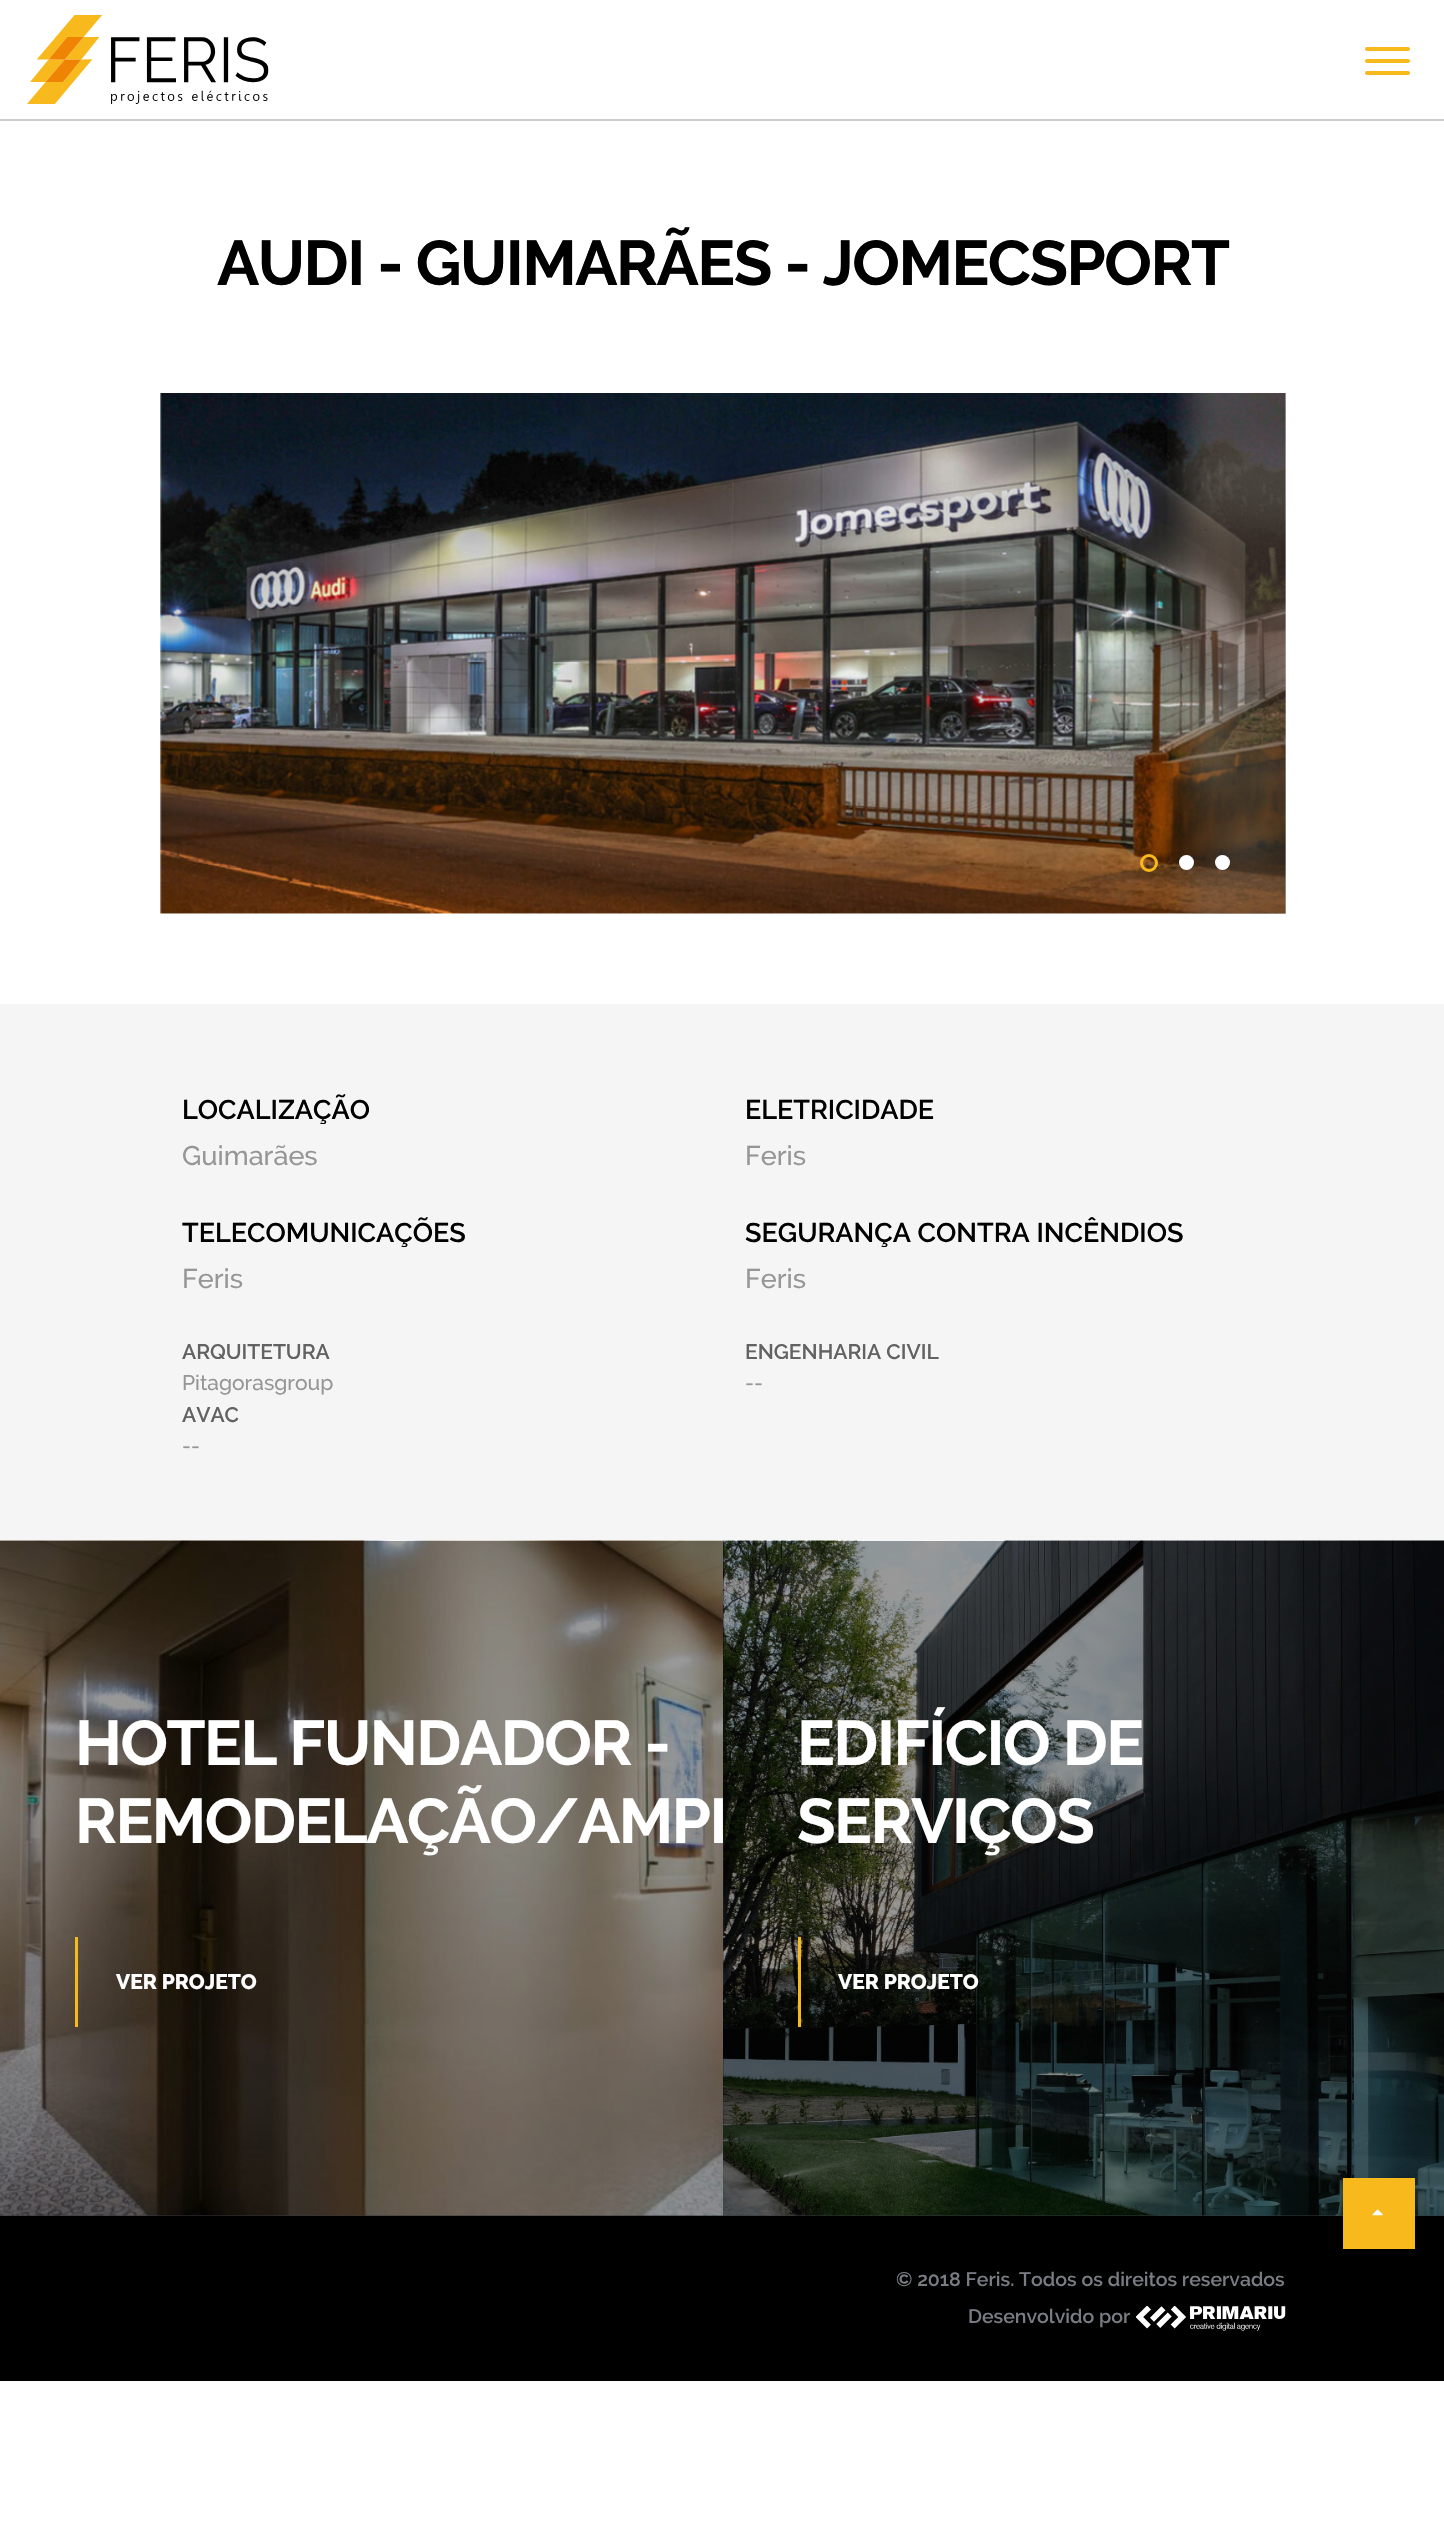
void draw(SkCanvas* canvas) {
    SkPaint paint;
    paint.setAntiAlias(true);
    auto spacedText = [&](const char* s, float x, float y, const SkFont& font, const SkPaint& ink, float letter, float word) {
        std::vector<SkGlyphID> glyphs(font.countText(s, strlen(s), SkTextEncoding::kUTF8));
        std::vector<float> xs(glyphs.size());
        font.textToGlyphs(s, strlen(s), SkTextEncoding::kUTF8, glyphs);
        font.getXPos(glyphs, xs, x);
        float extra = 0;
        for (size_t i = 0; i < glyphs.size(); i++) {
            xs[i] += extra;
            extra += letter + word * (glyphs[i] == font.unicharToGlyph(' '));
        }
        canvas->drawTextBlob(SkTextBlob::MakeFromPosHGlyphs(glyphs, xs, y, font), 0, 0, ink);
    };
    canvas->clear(0xFFFFFFFF);
    paint.setColor(0xFFCCCCCC);
    canvas->drawRect(SkRect::MakeXYWH(0, 119, 1444, 2), paint);
    canvas->drawImageRect(SkImages::DeferredFromEncodedData(SkData::MakeFromFileName("img1.png")), SkRect::MakeXYWH(27, 15, 242, 89), SkSamplingOptions());
    paint.setColor(0xFFF7B91C);
    canvas->drawRoundRect(SkRect::MakeXYWH(1365, 47, 45, 4), 2, 2, paint);
    canvas->drawRoundRect(SkRect::MakeXYWH(1365, 59, 45, 4), 2, 2, paint);
    canvas->drawRoundRect(SkRect::MakeXYWH(1365, 71, 45, 4), 2, 2, paint);
    SkFont font1(fontMgr->matchFamilyStyle("Raleway", SkFontStyle::Bold()), 63);
    font1.setSubpixel(true);
    paint.setColor(0xFF000000);
    spacedText("AUDI - GUIMARÃES - JOMECSPORT", 217, 285, font1, paint, -1.5f, 0);
    canvas->drawImageRect(SkImages::DeferredFromEncodedData(SkData::MakeFromFileName("img2.png")), SkRect::MakeXYWH(160, 393, 1126, 521), SkSamplingOptions());
    canvas->drawImageRect(SkImages::DeferredFromEncodedData(SkData::MakeFromFileName("img3.png")), SkRect::MakeXYWH(1167, 393, 119, 521), SkSamplingOptions());
    paint.setStyle(SkPaint::kStroke_Style);
    paint.setStrokeWidth(3);
    paint.setColor(0xFFF7B91C);
    canvas->drawCircle(1149, 863, 7.5f, paint);
    paint.setStyle(SkPaint::kFill_Style);
    paint.setColor(0xFFFFFFFF);
    canvas->drawCircle(1186.5f, 862.5f, 7.5f, paint);
    canvas->drawCircle(1222.5f, 862.5f, 7.5f, paint);
    paint.setColor(0xFFF5F5F5);
    canvas->drawRect(SkRect::MakeXYWH(0, 1004, 1444, 537), paint);
    SkFont font2(fontMgr->matchFamilyStyle("Raleway", SkFontStyle(600, SkFontStyle::kNormal_Width, SkFontStyle::kUpright_Slant)), 27);
    font2.setSubpixel(true);
    paint.setColor(0xFF000000);
    canvas->drawString("LOCALIZAÇÃO", 182, 1119, font2, paint);
    SkFont font3(fontMgr->matchFamilyStyle("Raleway", SkFontStyle(500, SkFontStyle::kNormal_Width, SkFontStyle::kUpright_Slant)), 27);
    font3.setSubpixel(true);
    paint.setColor(0xFF969696);
    canvas->drawString("Guimarães", 182, 1165, font3, paint);
    paint.setColor(0xFF000000);
    canvas->drawString("ELETRICIDADE", 745, 1119, font2, paint);
    paint.setColor(0xFF969696);
    canvas->drawString("Feris", 745, 1165, font3, paint);
    paint.setColor(0xFF000000);
    canvas->drawString("TELECOMUNICAÇÕES", 182, 1242, font2, paint);
    paint.setColor(0xFF969696);
    canvas->drawString("Feris", 182, 1288, font3, paint);
    paint.setColor(0xFF000000);
    canvas->drawString("SEGURANÇA CONTRA INCÊNDIOS", 745, 1242, font2, paint);
    paint.setColor(0xFF969696);
    canvas->drawString("Feris", 745, 1288, font3, paint);
    SkFont font4(fontMgr->matchFamilyStyle("Raleway", SkFontStyle(600, SkFontStyle::kNormal_Width, SkFontStyle::kUpright_Slant)), 21);
    font4.setSubpixel(true);
    paint.setColor(0xFF626262);
    canvas->drawString("ARQUITETURA", 182, 1359, font4, paint);
    SkFont font5(fontMgr->matchFamilyStyle("Raleway", SkFontStyle(500, SkFontStyle::kNormal_Width, SkFontStyle::kUpright_Slant)), 21);
    font5.setSubpixel(true);
    paint.setColor(0xFF969696);
    canvas->drawString("Pitagorasgroup", 182, 1390, font5, paint);
    paint.setColor(0xFF626262);
    canvas->drawString("ENGENHARIA CIVIL", 745, 1359, font4, paint);
    paint.setColor(0xFF969696);
    canvas->drawString("--", 745, 1390, font5, paint);
    paint.setColor(0xFF626262);
    canvas->drawString("AVAC", 182, 1422, font4, paint);
    paint.setColor(0xFF969696);
    canvas->drawString("--", 182, 1453, font5, paint);
    paint.setColor(0xFF575E65);
    canvas->drawRect(SkRect::MakeXYWH(723, 2215, 721, 1), paint);
    paint.setColor(0xFF34383D);
    canvas->drawRect(SkRect::MakeXYWH(0, 2215, 723, 1), paint);
    canvas->drawImageRect(SkImages::DeferredFromEncodedData(SkData::MakeFromFileName("img4.png")), SkRect::MakeXYWH(0, 1540, 723, 676), SkSamplingOptions());
    paint.setColor(0xFFFFFFFF);
    spacedText("HOTEL FUNDADOR -", 75, 1765, font1, paint, -1.5f, 0);
    spacedText("REMODELAÇÃO/AMPL", 75, 1843, font1, paint, -1.5f, 0);
    paint.setColor(0xFFF7B91C);
    canvas->drawRect(SkRect::MakeXYWH(75, 1937, 3, 90), paint);
    SkFont font6(fontMgr->matchFamilyStyle("Raleway", SkFontStyle(800, SkFontStyle::kNormal_Width, SkFontStyle::kUpright_Slant)), 21);
    font6.setSubpixel(true);
    paint.setColor(0xFFFFFFFF);
    canvas->drawString("VER PROJETO", 116, 1989, font6, paint);
    canvas->drawImageRect(SkImages::DeferredFromEncodedData(SkData::MakeFromFileName("img5.png")), SkRect::MakeXYWH(723, 1540, 721, 676), SkSamplingOptions());
    paint.setColor(0x66000000);
    canvas->drawRect(SkRect::MakeXYWH(723, 1541, 721, 675), paint);
    paint.setColor(0xFFFFFFFF);
    spacedText("EDIFÍCIO DE", 797, 1765, font1, paint, -1.5f, 0);
    spacedText("SERVIÇOS", 797, 1843, font1, paint, -1.5f, 0);
    paint.setColor(0xFFF7B91C);
    canvas->drawRect(SkRect::MakeXYWH(798, 1937, 3, 90), paint);
    paint.setColor(0xFFFFFFFF);
    canvas->drawString("VER PROJETO", 838, 1989, font6, paint);
    paint.setColor(0xFF000000);
    canvas->drawRect(SkRect::MakeXYWH(0, 2216, 1444, 165), paint);
    paint.setColor(0xFFF7B91C);
    canvas->drawRect(SkRect::MakeXYWH(1343, 2178, 72, 71), paint);
    canvas->drawImageRect(SkImages::DeferredFromEncodedData(SkData::MakeFromFileName("img6.png")), SkRect::MakeXYWH(1372, 2209, 11, 7), SkSamplingOptions());
    SkFont font7(fontMgr->matchFamilyStyle("Raleway", SkFontStyle(600, SkFontStyle::kNormal_Width, SkFontStyle::kUpright_Slant)), 19.5f);
    font7.setSubpixel(true);
    paint.setColor(0xFF797C82);
    canvas->drawString("© 2018 Feris. Todos os direitos reservados", 896, 2286, font7, paint);
    canvas->drawString("Desenvolvido por", 968, 2323, font7, paint);
    canvas->drawImageRect(SkImages::DeferredFromEncodedData(SkData::MakeFromFileName("img7.png")), SkRect::MakeXYWH(1136, 2306, 150, 25), SkSamplingOptions());
}
